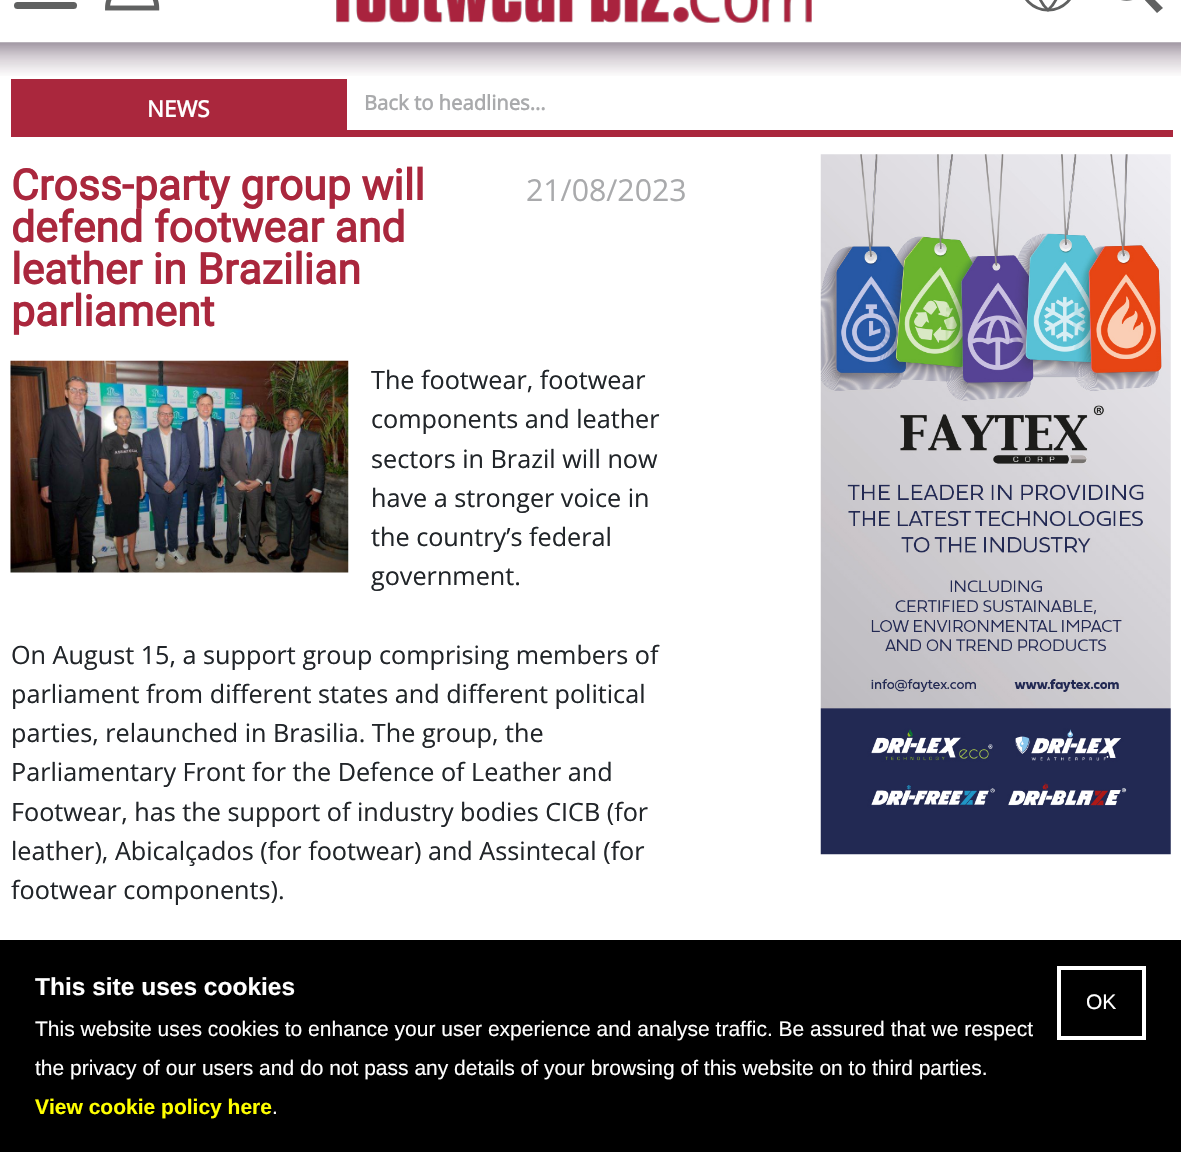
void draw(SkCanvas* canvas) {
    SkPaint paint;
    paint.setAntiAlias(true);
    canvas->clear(0xFFFFFFFF);
    paint.setColor(0xFF606161);
    canvas->drawRoundRect(SkRect::MakeXYWH(14, 2, 63, 7), 3.5f, 3.5f, paint);
    canvas->drawImageRect(SkImages::DeferredFromEncodedData(SkData::MakeFromFileName("img1.png")), SkRect::MakeXYWH(105, 0, 55, 11), SkSamplingOptions());
    canvas->drawImageRect(SkImages::DeferredFromEncodedData(SkData::MakeFromFileName("img2.png")), SkRect::MakeXYWH(336, 0, 476, 23), SkSamplingOptions());
    paint.setStyle(SkPaint::kStroke_Style);
    paint.setStrokeWidth(2.8f);
    canvas->drawCircle(1048, -17.5f, 27.5f, paint);
    paint.setStrokeCap(SkPaint::kRound_Cap);
    canvas->drawPath(SkPathBuilder().moveTo(1048, 10).cubicTo(1063.5f, -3.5f, 1063.5f, -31.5f, 1048, -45).cubicTo(1033, -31.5f, 1033, -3.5f, 1048, 10).close().detach(), paint);
    paint.setStyle(SkPaint::kFill_Style);
    canvas->drawPath(SkPathBuilder().moveTo(1147, -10).cubicTo(1159, -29, 1139, -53, 1118, -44).cubicTo(1112, -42, 1108, -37, 1105, -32).cubicTo(1102, -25, 1103, -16, 1108, -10).cubicTo(1115, 2, 1130, 4, 1141, -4).lineTo(1157, 13).lineTo(1163, 8).lineTo(1146, -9).close().moveTo(1140, -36).cubicTo(1157, -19, 1131, 7, 1114, -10).cubicTo(1097, -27, 1123, -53, 1140, -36).close().detach(), paint);
    canvas->drawImageRect(SkImages::DeferredFromEncodedData(SkData::MakeFromFileName("img3.png")), SkRect::MakeXYWH(0, 42, 1181, 34), SkSamplingOptions());
    paint.setColor(0xFFAA273D);
    canvas->drawRect(SkRect::MakeXYWH(11, 79, 336, 51), paint);
    SkFont font1(fontMgr->matchFamilyStyle("Open Sans", SkFontStyle::Bold()), 22.5f);
    font1.setSubpixel(true);
    paint.setColor(0xFFFFFFFF);
    canvas->drawString("NEWS", 147, 117, font1, paint);
    SkFont font2(fontMgr->matchFamilyStyle("Open Sans", SkFontStyle::Bold()), 20.25f);
    font2.setSubpixel(true);
    paint.setColor(0xFFA9AAAC);
    canvas->drawString("Back to headlines...", 364, 110, font2, paint);
    paint.setColor(0xFFAA273D);
    canvas->drawRect(SkRect::MakeXYWH(11, 130, 1162, 7), paint);
    SkFont font3(fontMgr->matchFamilyStyle("Roboto", SkFontStyle::Bold()), 42.75f);
    font3.setSubpixel(true);
    canvas->drawString("Cross-party group will", 11, 200, font3, paint);
    canvas->drawString("defend footwear and", 11, 242, font3, paint);
    canvas->drawString("leather in Brazilian", 11, 284, font3, paint);
    canvas->drawString("parliament", 11, 326, font3, paint);
    SkFont font4(fontMgr->matchFamilyStyle("Open Sans", SkFontStyle::Normal()), 30.25f);
    font4.setSubpixel(true);
    paint.setColor(0xFFA9AAAC);
    canvas->drawString("21/08/2023", 526, 201, font4, paint);
    canvas->drawImageRect(SkImages::DeferredFromEncodedData(SkData::MakeFromFileName("img4.png")), SkRect::MakeXYWH(10, 360, 339, 213), SkSamplingOptions());
    SkFont font5(fontMgr->matchFamilyStyle("Open Sans", SkFontStyle::Normal()), 25.2f);
    font5.setSubpixel(true);
    paint.setColor(0xFF212529);
    canvas->drawString("The footwear, footwear", 371, 389, font5, paint);
    canvas->drawString("components and leather", 371, 428, font5, paint);
    canvas->drawString("sectors in Brazil will now", 371, 468, font5, paint);
    canvas->drawString("have a stronger voice in", 371, 507, font5, paint);
    canvas->drawString("the country’s federal", 371, 546, font5, paint);
    canvas->drawString("government.", 371, 585, font5, paint);
    canvas->drawString("On August 15, a support group comprising members of", 11, 664, font5, paint);
    canvas->drawString("parliament from different states and different political", 11, 703, font5, paint);
    canvas->drawString("parties, relaunched in Brasilia. The group, the", 11, 742, font5, paint);
    canvas->drawString("Parliamentary Front for the Defence of Leather and", 11, 781, font5, paint);
    canvas->drawString("Footwear, has the support of industry bodies CICB (for", 11, 821, font5, paint);
    canvas->drawString("leather), Abicalçados (for footwear) and Assintecal (for", 11, 860, font5, paint);
    canvas->drawString("footwear components).", 11, 899, font5, paint);
    canvas->drawImageRect(SkImages::DeferredFromEncodedData(SkData::MakeFromFileName("img5.png")), SkRect::MakeXYWH(820, 154, 351, 701), SkSamplingOptions());
    paint.setColor(0xFF000000);
    canvas->drawRect(SkRect::MakeXYWH(0, 940, 1181, 212), paint);
    SkFont font6(fontMgr->matchFamilyStyle("Liberation Sans", SkFontStyle::Bold()), 24.5f);
    font6.setSubpixel(true);
    paint.setColor(0xFFFFFFFF);
    canvas->drawString("This site uses cookies", 35, 995, font6, paint);
    SkFont font7(fontMgr->matchFamilyStyle("Liberation Sans", SkFontStyle::Normal()), 21);
    font7.setSubpixel(true);
    canvas->drawString("This website uses cookies to enhance your user experience and analyse traffic. Be assured that we respect", 35, 1036, font7, paint);
    canvas->drawString("the privacy of our users and do not pass any details of your browsing of this website on to third parties.", 35, 1075, font7, paint);
    SkFont font8(fontMgr->matchFamilyStyle("Liberation Sans", SkFontStyle::Bold()), 21);
    font8.setSubpixel(true);
    paint.setColor(0xFFFFFF00);
    canvas->drawString("View cookie policy here", 35, 1114, font8, paint);
    paint.setColor(0xFFFFFFFF);
    canvas->drawString(".", 272, 1114, font7, paint);
    paint.setStyle(SkPaint::kStroke_Style);
    paint.setStrokeWidth(4);
    paint.setStrokeCap(SkPaint::kButt_Cap);
    canvas->drawRect(SkRect::MakeXYWH(1059, 968, 85, 70), paint);
    paint.setStyle(SkPaint::kFill_Style);
    canvas->drawString("OK", 1086, 1009, font7, paint);
}
